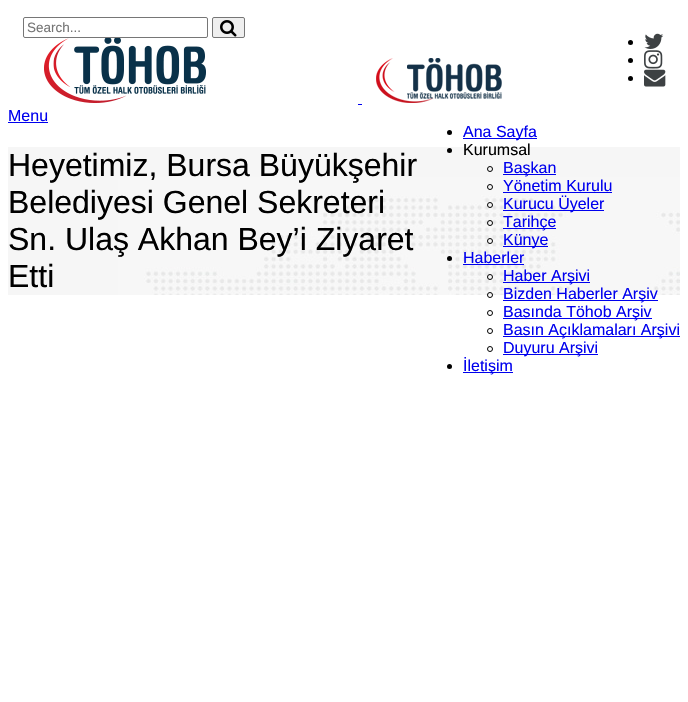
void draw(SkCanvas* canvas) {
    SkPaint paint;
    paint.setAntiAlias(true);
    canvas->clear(0xFFFFFFFF);
    paint.setStyle(SkPaint::kStroke_Style);
    paint.setStrokeWidth(1);
    paint.setColor(0xFF767676);
    canvas->drawRoundRect(SkRect::MakeXYWH(23.5f, 17.5f, 184, 20), 1.5f, 1.5f, paint);
    SkFont font1(fontMgr->matchFamilyStyle("Liberation Sans", SkFontStyle::Normal()), 13.5f);
    font1.setSubpixel(true);
    paint.setStyle(SkPaint::kFill_Style);
    paint.setColor(0xFF757575);
    canvas->drawString("Search...", 27, 32, font1, paint);
    paint.setColor(0xFFEFEFEF);
    canvas->drawRoundRect(SkRect::MakeXYWH(212.5f, 17.5f, 32, 20), 1.5f, 1.5f, paint);
    paint.setStyle(SkPaint::kStroke_Style);
    paint.setColor(0xFF767676);
    canvas->drawRoundRect(SkRect::MakeXYWH(212.5f, 17.5f, 32, 20), 1.5f, 1.5f, paint);
    canvas->drawImageRect(SkImages::DeferredFromEncodedData(SkData::MakeFromFileName("img1.png")), SkRect::MakeXYWH(220, 20, 17, 17), SkSamplingOptions());
    paint.setStyle(SkPaint::kFill_Style);
    paint.setColor(0xFF000000);
    canvas->drawCircle(630.5f, 42.5f, 2.5f, paint);
    canvas->drawImageRect(SkImages::DeferredFromEncodedData(SkData::MakeFromFileName("img2.png")), SkRect::MakeXYWH(644, 33, 20, 16), SkSamplingOptions());
    canvas->drawCircle(630.5f, 60.5f, 2.5f, paint);
    canvas->drawImageRect(SkImages::DeferredFromEncodedData(SkData::MakeFromFileName("img3.png")), SkRect::MakeXYWH(644, 50, 19, 19), SkSamplingOptions());
    canvas->drawCircle(630.5f, 78.5f, 2.5f, paint);
    canvas->drawImageRect(SkImages::DeferredFromEncodedData(SkData::MakeFromFileName("img4.png")), SkRect::MakeXYWH(644, 69, 22, 18), SkSamplingOptions());
    canvas->drawImageRect(SkImages::DeferredFromEncodedData(SkData::MakeFromFileName("img5.png")), SkRect::MakeXYWH(44, 38, 162, 65), SkSamplingOptions());
    canvas->drawImageRect(SkImages::DeferredFromEncodedData(SkData::MakeFromFileName("img6.png")), SkRect::MakeXYWH(376, 58, 126, 45), SkSamplingOptions());
    paint.setColor(0xFF0000EE);
    canvas->drawRect(SkRect::MakeXYWH(358, 104, 4, 1), paint);
    SkFont font2(fontMgr->matchFamilyStyle("Liberation Sans", SkFontStyle::Normal()), 16);
    font2.setSubpixel(true);
    canvas->drawString("Menu", 8, 121, font2, paint);
    canvas->drawRect(SkRect::MakeXYWH(8, 122, 40, 1), paint);
    paint.setColor(0xFF000000);
    canvas->drawCircle(449.5f, 132.5f, 2.5f, paint);
    paint.setColor(0xFF0000EE);
    canvas->drawRect(SkRect::MakeXYWH(463, 138, 74, 1), paint);
    canvas->drawString("Ana Sayfa", 463, 137, font2, paint);
    canvas->drawImageRect(SkImages::DeferredFromEncodedData(SkData::MakeFromFileName("img7.png")), SkRect::MakeXYWH(8, 147, 672, 148), SkSamplingOptions());
    paint.setColor(0xFF000000);
    canvas->drawCircle(449.5f, 150.5f, 2.5f, paint);
    canvas->drawString("Kurumsal", 463, 155, font2, paint);
    paint.setStyle(SkPaint::kStroke_Style);
    canvas->drawCircle(490, 169, 2.5f, paint);
    paint.setStyle(SkPaint::kFill_Style);
    paint.setColor(0xFF0000EE);
    canvas->drawRect(SkRect::MakeXYWH(503, 174, 53, 1), paint);
    canvas->drawString("Başkan", 503, 173, font2, paint);
    paint.setStyle(SkPaint::kStroke_Style);
    paint.setColor(0xFF000000);
    canvas->drawCircle(490, 187, 2.5f, paint);
    paint.setStyle(SkPaint::kFill_Style);
    paint.setColor(0xFF0000EE);
    canvas->drawString("Yönetim Kurulu", 503, 191, font2, paint);
    canvas->drawRect(SkRect::MakeXYWH(503, 192, 109, 1), paint);
    paint.setStyle(SkPaint::kStroke_Style);
    paint.setColor(0xFF000000);
    canvas->drawCircle(490, 205, 2.5f, paint);
    paint.setStyle(SkPaint::kFill_Style);
    paint.setColor(0xFF0000EE);
    canvas->drawRect(SkRect::MakeXYWH(503, 210, 101, 1), paint);
    canvas->drawString("Kurucu Üyeler", 503, 209, font2, paint);
    paint.setStyle(SkPaint::kStroke_Style);
    paint.setColor(0xFF000000);
    canvas->drawCircle(490, 223, 2.5f, paint);
    paint.setStyle(SkPaint::kFill_Style);
    paint.setColor(0xFF0000EE);
    canvas->drawRect(SkRect::MakeXYWH(503, 228, 53, 1), paint);
    canvas->drawString("Tarihçe", 503, 227, font2, paint);
    paint.setStyle(SkPaint::kStroke_Style);
    paint.setColor(0xFF000000);
    canvas->drawCircle(490, 241, 2.5f, paint);
    paint.setStyle(SkPaint::kFill_Style);
    paint.setColor(0xFF0000EE);
    canvas->drawRect(SkRect::MakeXYWH(503, 246, 45, 1), paint);
    canvas->drawString("Künye", 503, 245, font2, paint);
    paint.setColor(0xFF000000);
    canvas->drawCircle(449.5f, 258.5f, 2.5f, paint);
    paint.setColor(0xFF0000EE);
    canvas->drawString("Haberler", 463, 263, font2, paint);
    canvas->drawRect(SkRect::MakeXYWH(463, 264, 61, 1), paint);
    paint.setStyle(SkPaint::kStroke_Style);
    paint.setColor(0xFF000000);
    canvas->drawCircle(490, 277, 2.5f, paint);
    paint.setStyle(SkPaint::kFill_Style);
    paint.setColor(0xFF0000EE);
    canvas->drawRect(SkRect::MakeXYWH(503, 282, 87, 1), paint);
    canvas->drawString("Haber Arşivi", 503, 281, font2, paint);
    paint.setStyle(SkPaint::kStroke_Style);
    paint.setColor(0xFF000000);
    canvas->drawCircle(490, 295, 2.5f, paint);
    paint.setStyle(SkPaint::kFill_Style);
    paint.setColor(0xFF0000EE);
    canvas->drawRect(SkRect::MakeXYWH(503, 300, 155, 1), paint);
    canvas->drawString("Bizden Haberler Arşiv", 503, 299, font2, paint);
    paint.setStyle(SkPaint::kStroke_Style);
    paint.setColor(0xFF000000);
    canvas->drawCircle(490, 313, 2.5f, paint);
    paint.setStyle(SkPaint::kFill_Style);
    paint.setColor(0xFF0000EE);
    canvas->drawRect(SkRect::MakeXYWH(503, 318, 149, 1), paint);
    canvas->drawString("Basında Töhob Arşiv", 503, 317, font2, paint);
    paint.setStyle(SkPaint::kStroke_Style);
    paint.setColor(0xFF000000);
    canvas->drawCircle(490, 331, 2.5f, paint);
    paint.setStyle(SkPaint::kFill_Style);
    paint.setColor(0xFF0000EE);
    canvas->drawRect(SkRect::MakeXYWH(503, 336, 177, 1), paint);
    canvas->drawString("Basın Açıklamaları Arşivi", 503, 335, font2, paint);
    paint.setStyle(SkPaint::kStroke_Style);
    paint.setColor(0xFF000000);
    canvas->drawCircle(490, 349, 2.5f, paint);
    paint.setStyle(SkPaint::kFill_Style);
    paint.setColor(0xFF0000EE);
    canvas->drawRect(SkRect::MakeXYWH(503, 354, 95, 1), paint);
    canvas->drawString("Duyuru Arşivi", 503, 353, font2, paint);
    paint.setColor(0xFF000000);
    canvas->drawCircle(449.5f, 366.5f, 2.5f, paint);
    paint.setColor(0xFF0000EE);
    canvas->drawRect(SkRect::MakeXYWH(463, 372, 50, 1), paint);
    canvas->drawString("İletişim", 463, 371, font2, paint);
    SkFont font3(fontMgr->matchFamilyStyle("Liberation Sans", SkFontStyle::Normal()), 32);
    font3.setSubpixel(true);
    paint.setColor(0xFF000000);
    canvas->drawString("Heyetimiz, Bursa Büyükşehir", 8, 176, font3, paint);
    canvas->drawString("Belediyesi Genel Sekreteri", 8, 213, font3, paint);
    canvas->drawString("Sn. Ulaş Akhan Bey’i Ziyaret", 8, 250, font3, paint);
    canvas->drawString("Etti", 8, 287, font3, paint);
}
